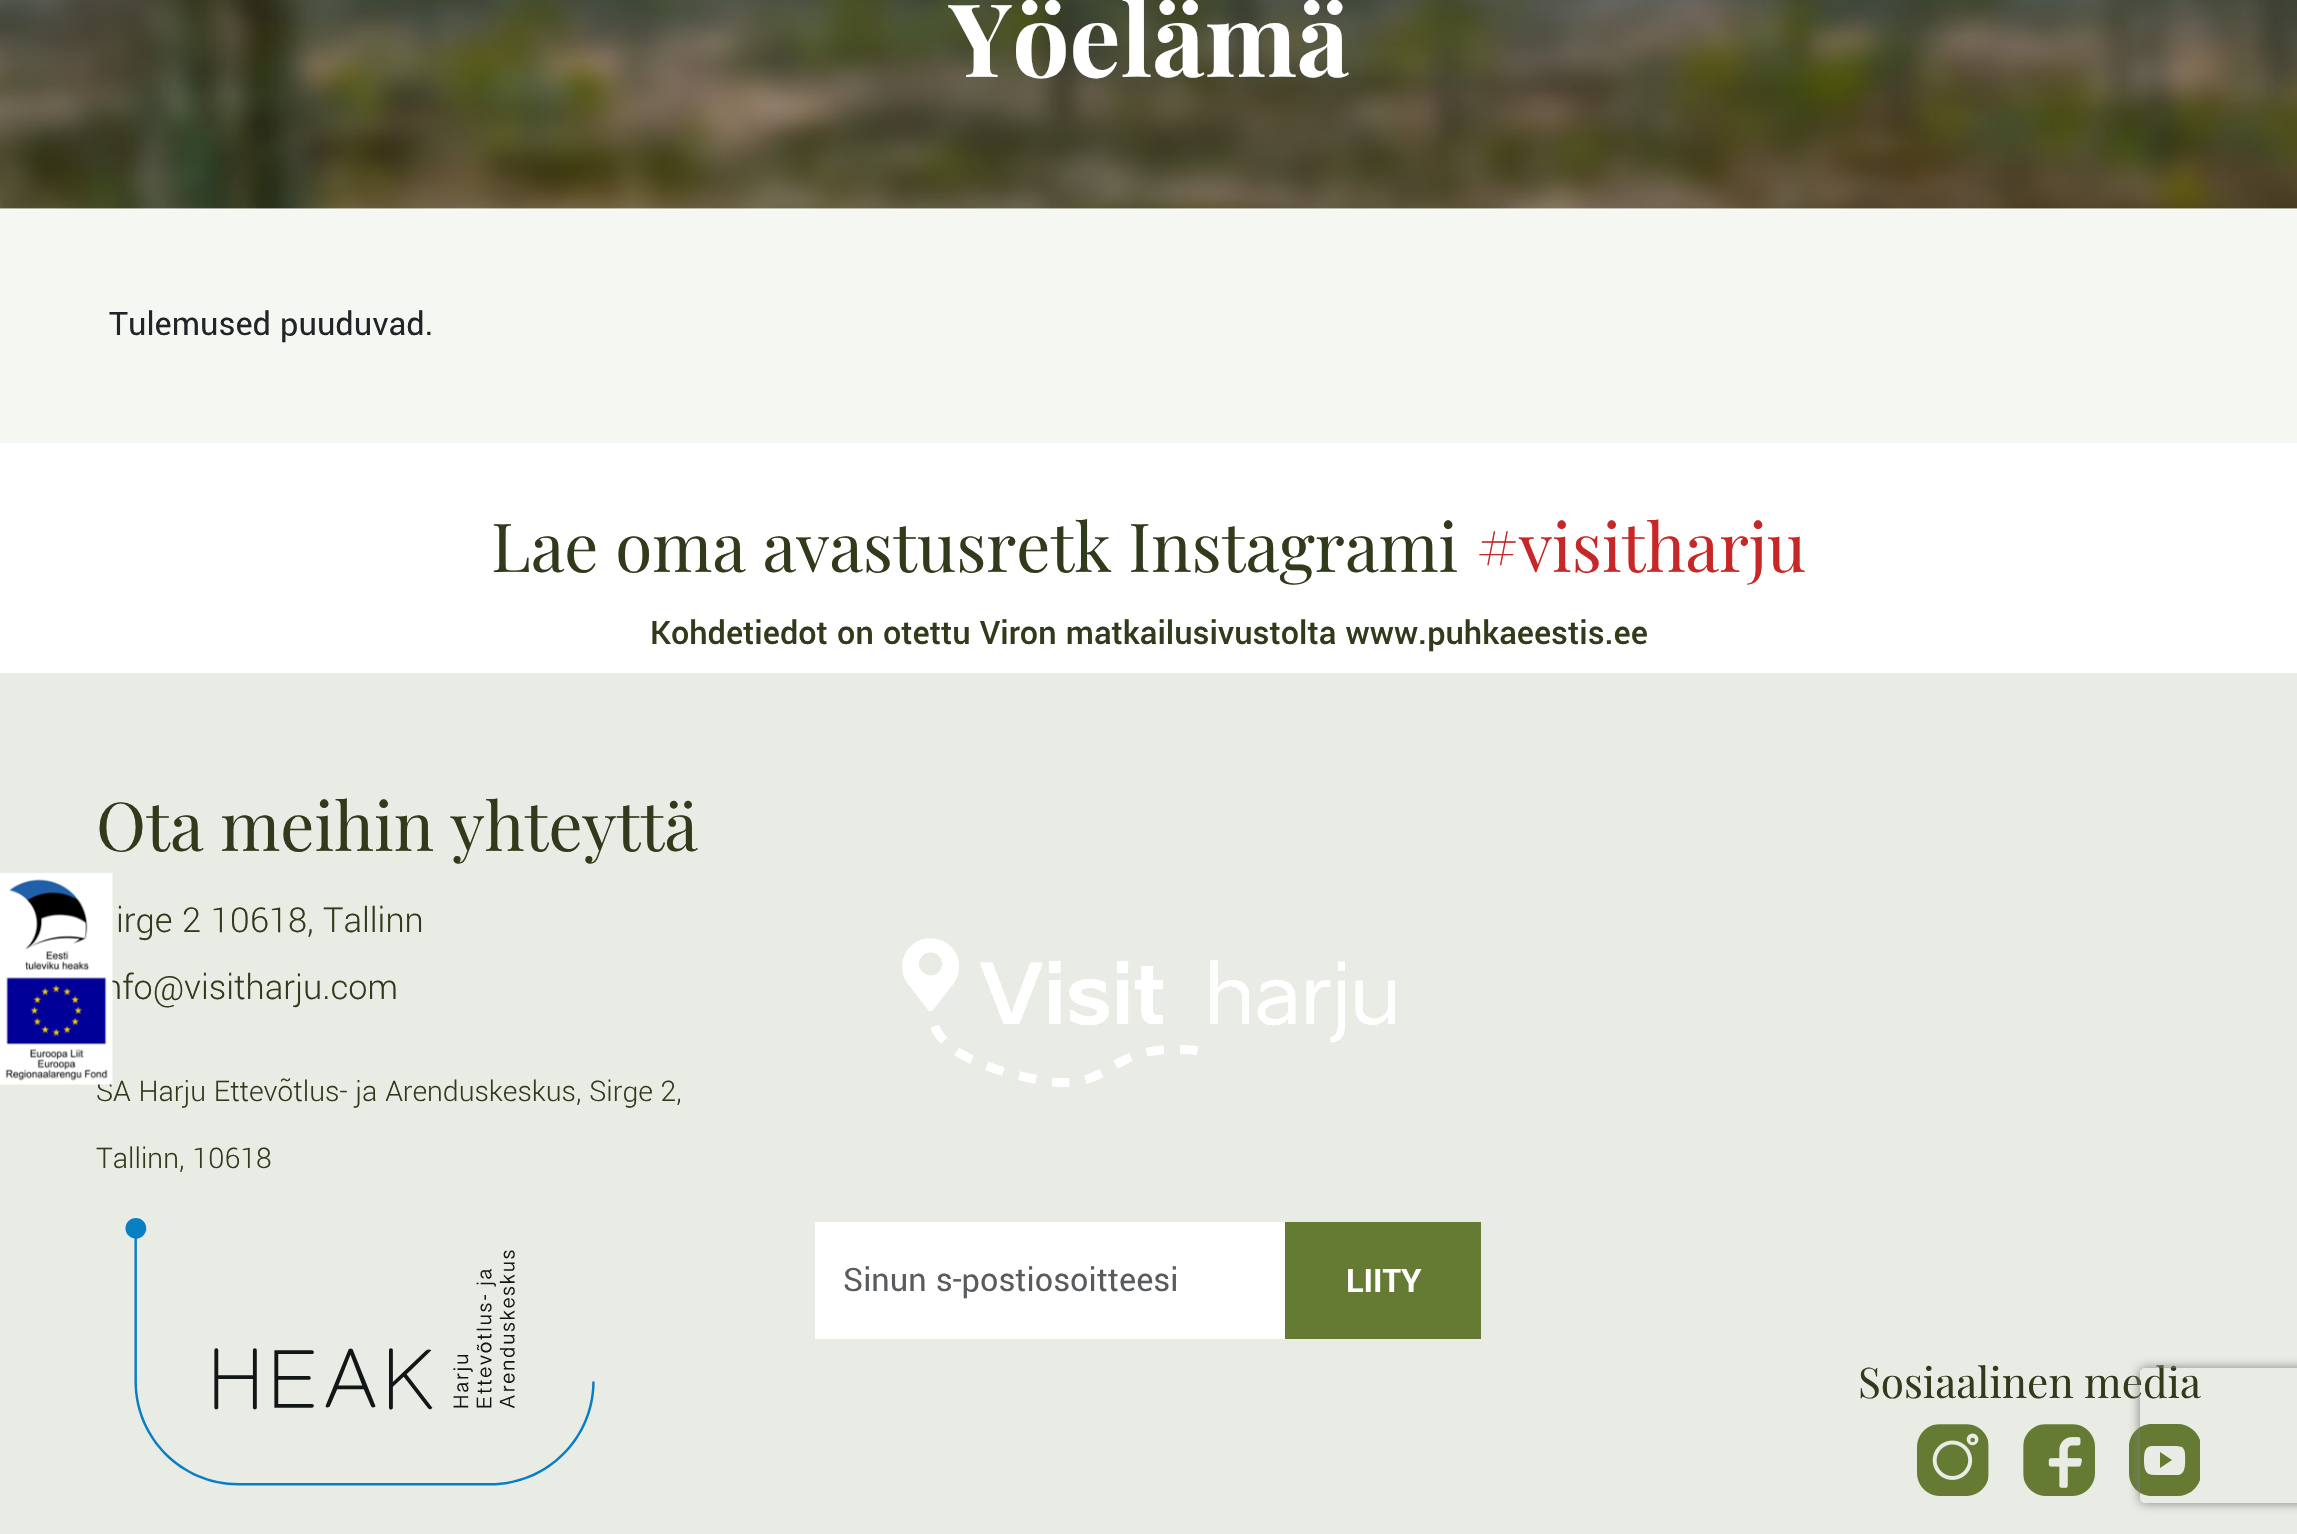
void draw(SkCanvas* canvas) {
    SkPaint paint;
    paint.setAntiAlias(true);
    canvas->clear(0xFFF5F8F2);
    canvas->drawImageRect(SkImages::DeferredFromEncodedData(SkData::MakeFromFileName("img1.png")), SkRect::MakeXYWH(0, 0, 2297, 210), SkSamplingOptions());
    SkFont font1(fontMgr->matchFamilyStyle("Playfair Display", SkFontStyle::Bold()), 101.5f);
    font1.setSubpixel(true);
    paint.setColor(0xFFFFFFFF);
    canvas->drawString("Yöelämä", 949, 77, font1, paint);
    SkFont font2(fontMgr->matchFamilyStyle("Yantramanav", SkFontStyle::Normal()), 36);
    font2.setSubpixel(true);
    paint.setColor(0xFF212529);
    canvas->drawString("Tulemused puuduvad.", 109, 335, font2, paint);
    paint.setColor(0xFFE8ECE4);
    canvas->drawRect(SkRect::MakeXYWH(0, 673, 2297, 861), paint);
    SkFont font3(fontMgr->matchFamilyStyle("Yantramanav", SkFontStyle(300, SkFontStyle::kNormal_Width, SkFontStyle::kUpright_Slant)), 38.25f);
    font3.setSubpixel(true);
    paint.setColor(0xFF313A1B);
    canvas->drawString("nfo@visitharju.com", 103, 999, font3, paint);
    SkFont font4(fontMgr->matchFamilyStyle("Yantramanav", SkFontStyle(300, SkFontStyle::kNormal_Width, SkFontStyle::kUpright_Slant)), 31.5f);
    font4.setSubpixel(true);
    canvas->drawString("SA Harju Ettevõtlus- ja Arenduskeskus, Sirge 2,", 96, 1101, font4, paint);
    canvas->drawImageRect(SkImages::DeferredFromEncodedData(SkData::MakeFromFileName("img2.png")), SkRect::MakeXYWH(0, 872, 113, 213), SkSamplingOptions());
    paint.setColor(0xFFFFFFFF);
    canvas->drawRect(SkRect::MakeXYWH(0, 443, 2297, 230), paint);
    SkFont font5(fontMgr->matchFamilyStyle("Playfair Display", SkFontStyle::Normal()), 67.5f);
    font5.setSubpixel(true);
    paint.setColor(0xFF313A1B);
    canvas->drawString("Lae oma avastusretk Instagrami", 491, 572, font5, paint);
    paint.setColor(0xFFC72727);
    canvas->drawString("#visitharju", 1476, 572, font5, paint);
    SkFont font6(fontMgr->matchFamilyStyle("Yantramanav", SkFontStyle(500, SkFontStyle::kNormal_Width, SkFontStyle::kUpright_Slant)), 36);
    font6.setSubpixel(true);
    paint.setColor(0xFF313A1B);
    canvas->drawString("Kohdetiedot on otettu Viron matkailusivustolta www.puhkaeestis.ee", 650, 644, font6, paint);
    canvas->drawString("Ota meihin yhteyttä", 96, 851, font5, paint);
    canvas->drawString("irge 2 10618, Tallinn", 116, 932, font3, paint);
    canvas->drawString("Tallinn, 10618", 96, 1168, font4, paint);
    canvas->drawImageRect(SkImages::DeferredFromEncodedData(SkData::MakeFromFileName("img3.png")), SkRect::MakeXYWH(125, 1218, 470, 268), SkSamplingOptions());
    canvas->drawImageRect(SkImages::DeferredFromEncodedData(SkData::MakeFromFileName("img4.png")), SkRect::MakeXYWH(902, 938, 493, 149), SkSamplingOptions());
    paint.setColor(0xFFFFFFFF);
    canvas->drawRect(SkRect::MakeXYWH(815, 1222, 470, 117), paint);
    paint.setColor(0xFF595C5F);
    canvas->drawString("Sinun s-postiosoitteesi", 843, 1291, font2, paint);
    paint.setColor(0xFF657B33);
    canvas->drawRect(SkRect::MakeXYWH(1285, 1222, 196, 117), paint);
    SkFont font7(fontMgr->matchFamilyStyle("Yantramanav", SkFontStyle::Bold()), 36);
    font7.setSubpixel(true);
    paint.setColor(0xFFFFFFFF);
    canvas->drawString("LIITY", 1346, 1292, font7, paint);
    SkFont font8(fontMgr->matchFamilyStyle("Playfair Display", SkFontStyle::Normal()), 42.25f);
    font8.setSubpixel(true);
    paint.setColor(0xFF313A1B);
    canvas->drawString("Sosiaalinen media", 1858, 1398, font8, paint);
    canvas->drawImageRect(SkImages::DeferredFromEncodedData(SkData::MakeFromFileName("img5.png")), SkRect::MakeXYWH(1917, 1424, 72, 72), SkSamplingOptions());
    canvas->drawImageRect(SkImages::DeferredFromEncodedData(SkData::MakeFromFileName("img6.png")), SkRect::MakeXYWH(2023, 1424, 72, 72), SkSamplingOptions());
    paint.setColor(0xFF657B33);
    canvas->drawPath(SkPathBuilder(SkPathFillType::kEvenOdd).moveTo(2152, 1424).cubicTo(2139, 1424, 2129, 1434, 2129, 1447).lineTo(2129, 1473).cubicTo(2129, 1486, 2139, 1496, 2152, 1496).lineTo(2178, 1496).cubicTo(2188, 1496, 2197, 1489, 2200, 1480).lineTo(2200, 1440).cubicTo(2197, 1431, 2188, 1424, 2178, 1424).close().moveTo(2185, 1454).cubicTo(2185, 1460, 2187, 1474, 2178, 1475).lineTo(2164, 1475).cubicTo(2150, 1475, 2144, 1477, 2144, 1460).cubicTo(2144, 1456, 2144, 1452, 2146, 1449).cubicTo(2147, 1447, 2150, 1446, 2152, 1446).lineTo(2177, 1446).lineTo(2182, 1447).cubicTo(2184, 1449, 2185, 1451, 2185, 1454).close().moveTo(2160, 1452).lineTo(2160, 1468).lineTo(2172, 1460).close().detach(), paint);
    canvas->save();
    canvas->clipPath(SkPathBuilder(SkPathFillType::kEvenOdd).moveTo(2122, 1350).lineTo(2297, 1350).lineTo(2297, 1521).lineTo(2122, 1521).close().moveTo(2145, 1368).lineTo(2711, 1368).cubicTo(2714, 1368, 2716, 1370, 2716, 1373).lineTo(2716, 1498).cubicTo(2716, 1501, 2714, 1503, 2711, 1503).lineTo(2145, 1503).cubicTo(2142, 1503, 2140, 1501, 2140, 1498).lineTo(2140, 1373).cubicTo(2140, 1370, 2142, 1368, 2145, 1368).close().detach(), true);
    paint.setColor(0xFF808080);
    paint.setMaskFilter(SkMaskFilter::MakeBlur(kNormal_SkBlurStyle, 5.5f));
    canvas->drawRoundRect(SkRect::MakeXYWH(2140, 1368, 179, 135), 5, 5, paint);
    paint.setMaskFilter(nullptr);
    canvas->restore();
}
